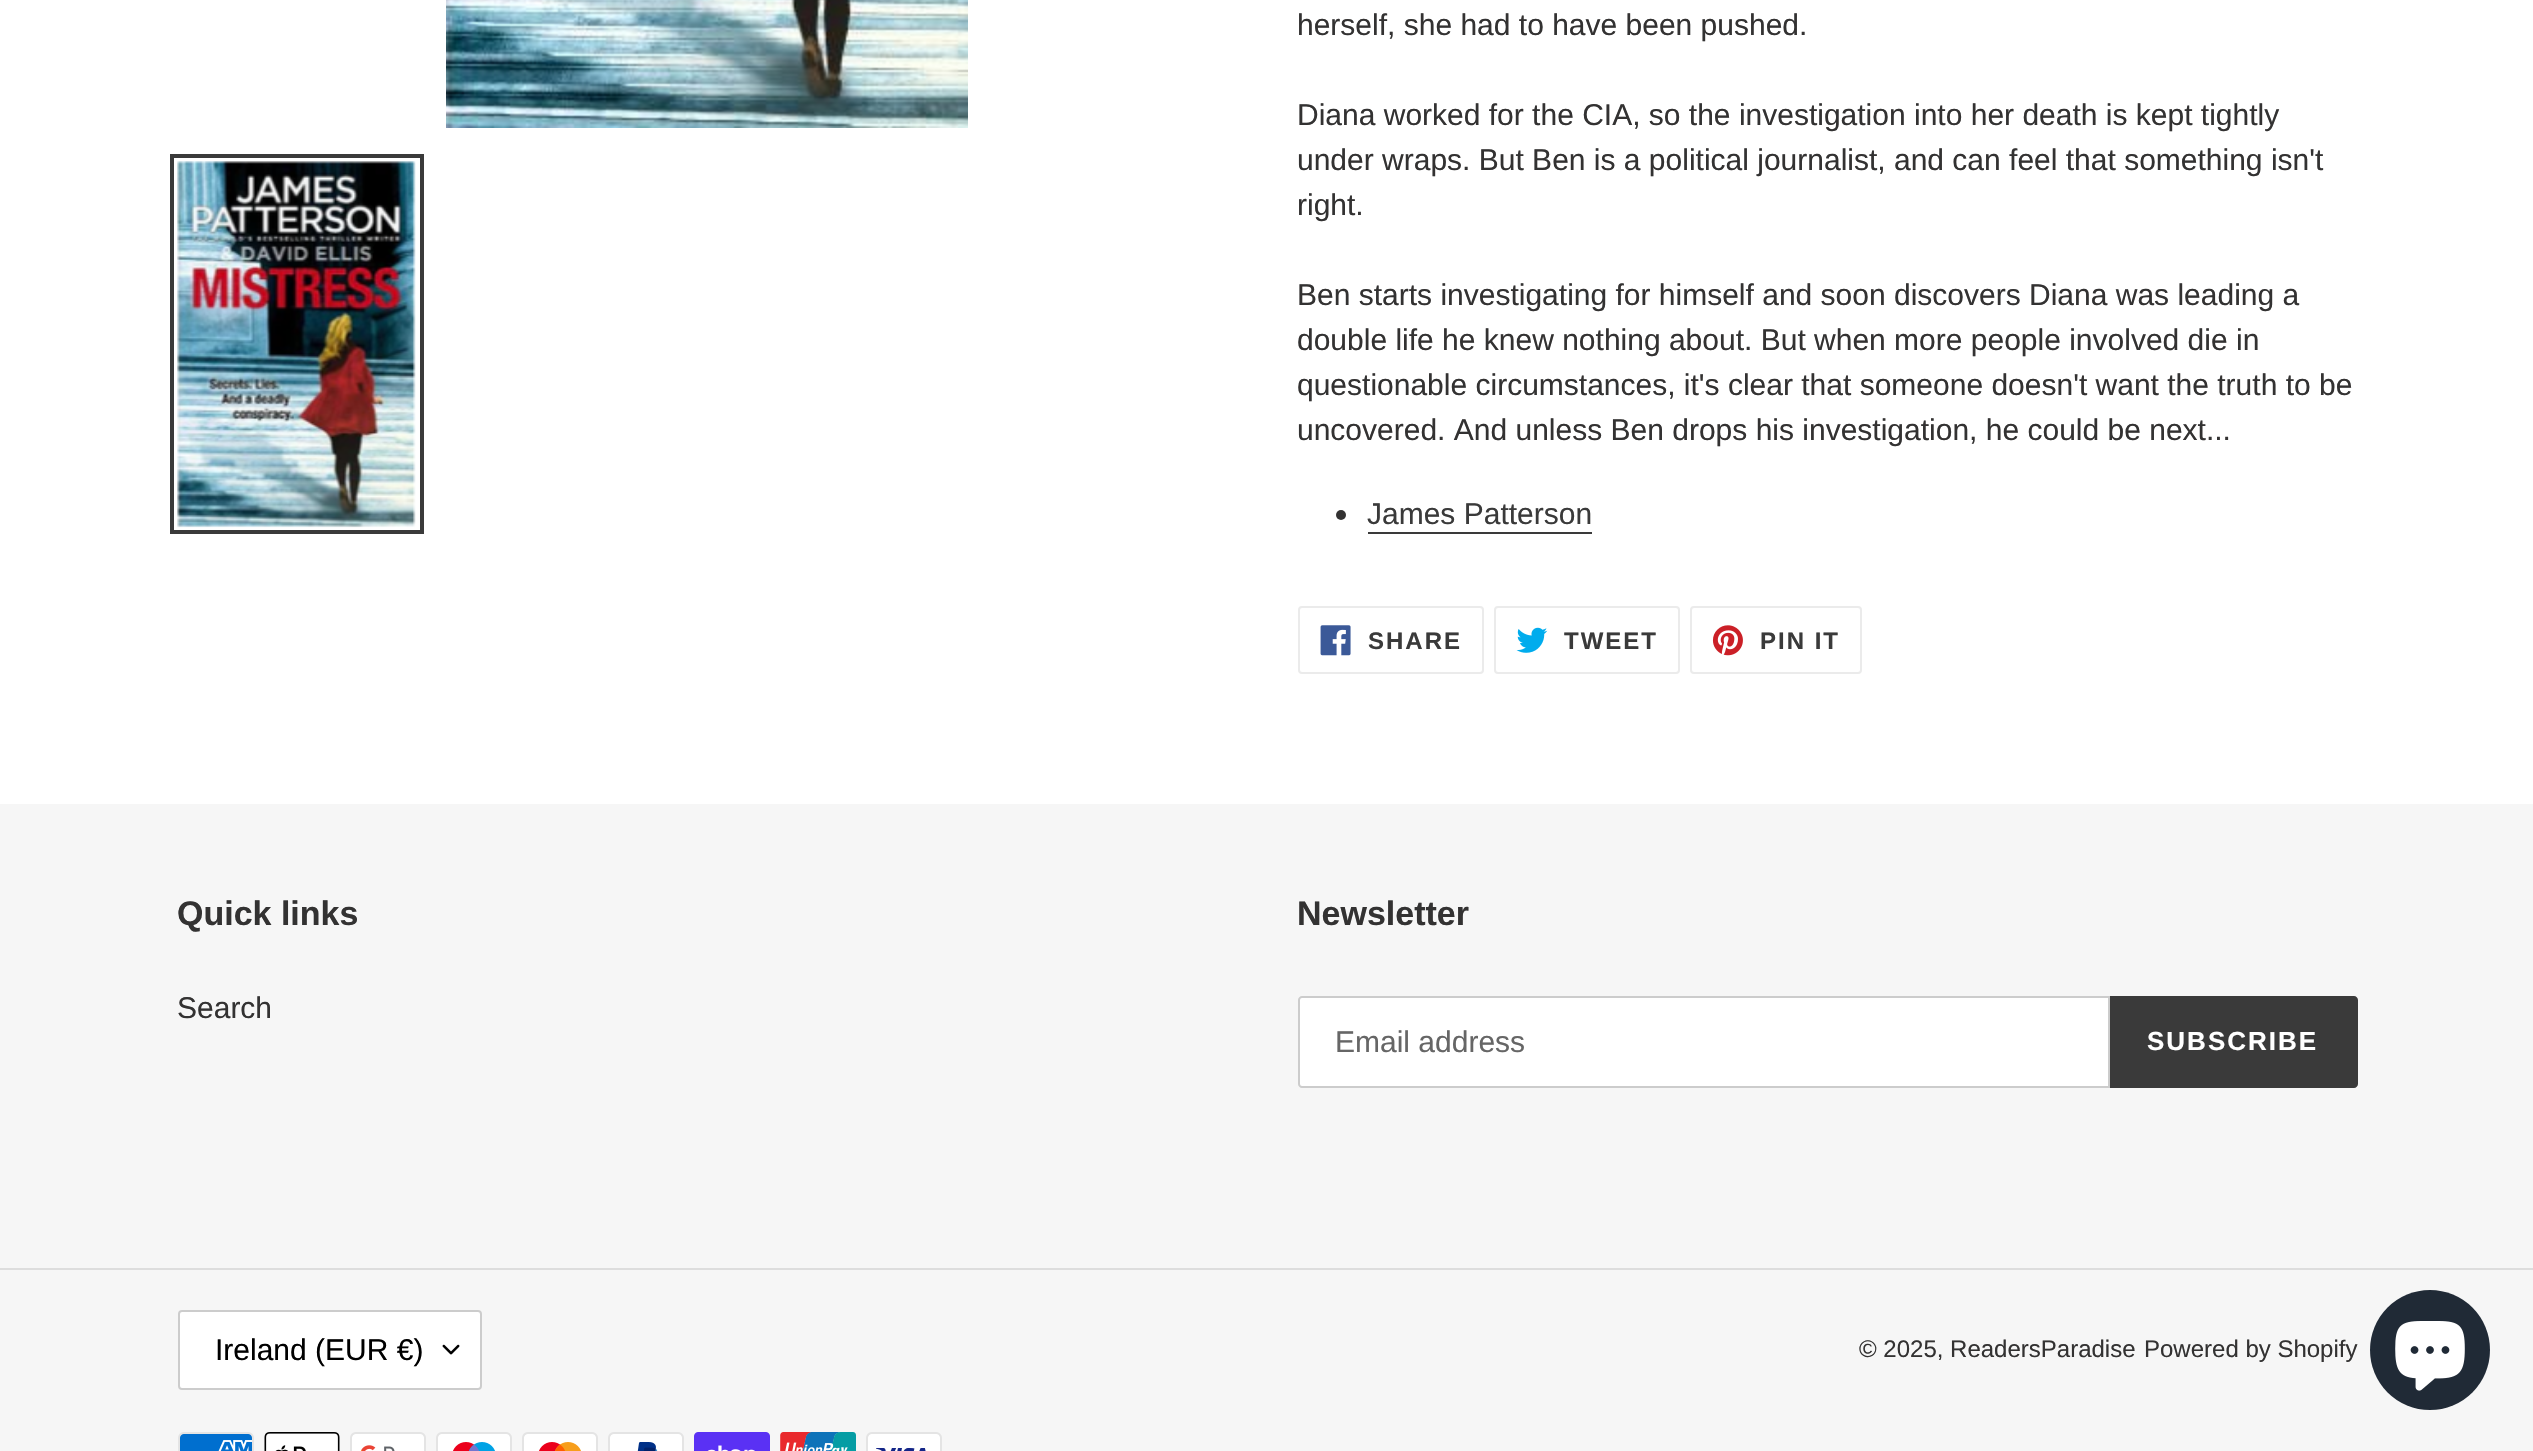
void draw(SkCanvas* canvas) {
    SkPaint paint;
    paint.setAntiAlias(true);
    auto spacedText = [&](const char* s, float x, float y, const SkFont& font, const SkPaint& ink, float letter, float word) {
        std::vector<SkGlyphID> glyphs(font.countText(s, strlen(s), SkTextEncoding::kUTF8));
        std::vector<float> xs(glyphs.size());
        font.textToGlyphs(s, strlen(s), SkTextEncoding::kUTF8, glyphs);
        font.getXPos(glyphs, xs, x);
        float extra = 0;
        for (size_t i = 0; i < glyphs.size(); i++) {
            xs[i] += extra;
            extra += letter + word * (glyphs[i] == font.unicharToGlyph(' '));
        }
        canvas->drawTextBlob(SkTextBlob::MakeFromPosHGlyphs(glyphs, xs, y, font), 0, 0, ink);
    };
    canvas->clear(0xFFFFFFFF);
    canvas->drawImageRect(SkImages::DeferredFromEncodedData(SkData::MakeFromFileName("img1.png")), SkRect::MakeXYWH(446, 0, 522, 128), SkSamplingOptions());
    paint.setStyle(SkPaint::kStroke_Style);
    paint.setStrokeWidth(4);
    paint.setColor(0xFF3A3A3A);
    canvas->drawRect(SkRect::MakeXYWH(172, 156, 250, 376), paint);
    canvas->drawImageRect(SkImages::DeferredFromEncodedData(SkData::MakeFromFileName("img2.png")), SkRect::MakeXYWH(177, 161, 239, 367), SkSamplingOptions());
    SkFont font1(fontMgr->matchFamilyStyle("Liberation Sans", SkFontStyle::Normal()), 30);
    font1.setSubpixel(true);
    paint.setStyle(SkPaint::kFill_Style);
    paint.setColor(0xFF333232);
    canvas->drawString("herself, she had to have been pushed.", 1297, 35, font1, paint);
    canvas->drawString("Diana worked for the CIA, so the investigation into her death is kept tightly", 1297, 125, font1, paint);
    canvas->drawString("under wraps. But Ben is a political journalist, and can feel that something isn't", 1297, 170, font1, paint);
    canvas->drawString("right.", 1297, 215, font1, paint);
    canvas->drawString("Ben starts investigating for himself and soon discovers Diana was leading a", 1297, 305, font1, paint);
    canvas->drawString("double life he knew nothing about. But when more people involved die in", 1297, 350, font1, paint);
    canvas->drawString("questionable circumstances, it's clear that someone doesn't want the truth to be", 1297, 395, font1, paint);
    canvas->drawString("uncovered. And unless Ben drops his investigation, he could be next...", 1297, 440, font1, paint);
    canvas->drawCircle(1341, 515, 5, paint);
    paint.setColor(0xFF3A3A3A);
    canvas->drawString("James Patterson", 1367, 524, font1, paint);
    canvas->drawRect(SkRect::MakeXYWH(1368, 532, 224, 2), paint);
    paint.setStyle(SkPaint::kStroke_Style);
    paint.setStrokeWidth(2);
    paint.setColor(0xFFEBEBEB);
    canvas->drawRoundRect(SkRect::MakeXYWH(1299, 607, 184, 66), 3, 3, paint);
    canvas->drawImageRect(SkImages::DeferredFromEncodedData(SkData::MakeFromFileName("img3.png")), SkRect::MakeXYWH(1320, 625, 31, 31), SkSamplingOptions());
    SkFont font2(fontMgr->matchFamilyStyle("Liberation Sans", SkFontStyle::Bold()), 24);
    font2.setSubpixel(true);
    paint.setStyle(SkPaint::kFill_Style);
    paint.setColor(0xFF3A3A3A);
    spacedText("SHARE", 1368, 649, font2, paint, 2, 0);
    paint.setStyle(SkPaint::kStroke_Style);
    paint.setColor(0xFFEBEBEB);
    canvas->drawRoundRect(SkRect::MakeXYWH(1495, 607, 184, 66), 3, 3, paint);
    canvas->drawImageRect(SkImages::DeferredFromEncodedData(SkData::MakeFromFileName("img4.png")), SkRect::MakeXYWH(1516, 627, 32, 26), SkSamplingOptions());
    paint.setStyle(SkPaint::kFill_Style);
    paint.setColor(0xFF3A3A3A);
    spacedText("TWEET", 1564, 649, font2, paint, 2, 0);
    paint.setStyle(SkPaint::kStroke_Style);
    paint.setColor(0xFFEBEBEB);
    canvas->drawRoundRect(SkRect::MakeXYWH(1691, 607, 170, 66), 3, 3, paint);
    canvas->drawImageRect(SkImages::DeferredFromEncodedData(SkData::MakeFromFileName("img5.png")), SkRect::MakeXYWH(1712, 625, 31, 31), SkSamplingOptions());
    paint.setStyle(SkPaint::kFill_Style);
    paint.setColor(0xFF3A3A3A);
    spacedText("PIN IT", 1760, 649, font2, paint, 2, 0);
    paint.setColor(0xFFF6F6F6);
    canvas->drawRect(SkRect::MakeXYWH(0, 804, 2533, 647), paint);
    SkFont font3(fontMgr->matchFamilyStyle("Liberation Sans", SkFontStyle::Bold()), 34);
    font3.setSubpixel(true);
    paint.setColor(0xFF333232);
    canvas->drawString("Quick links", 177, 925, font3, paint);
    canvas->drawString("Search", 177, 1018, font1, paint);
    canvas->drawString("Newsletter", 1297, 925, font3, paint);
    paint.setColor(0xFFFFFFFF);
    canvas->drawPath(SkPathBuilder().moveTo(1302, 997).lineTo(2109, 997).lineTo(2109, 1087).lineTo(1302, 1087).cubicTo(1300.5f, 1087, 1299, 1085.5f, 1299, 1084).lineTo(1299, 1000).cubicTo(1299, 998.5f, 1300.5f, 997, 1302, 997).close().detach(), paint);
    paint.setStyle(SkPaint::kStroke_Style);
    paint.setColor(0xFFCCCCCC);
    canvas->drawPath(SkPathBuilder().moveTo(1302, 997).lineTo(2109, 997).lineTo(2109, 1087).lineTo(1302, 1087).cubicTo(1300.5f, 1087, 1299, 1085.5f, 1299, 1084).lineTo(1299, 1000).cubicTo(1299, 998.5f, 1300.5f, 997, 1302, 997).close().detach(), paint);
    paint.setStyle(SkPaint::kFill_Style);
    paint.setColor(0xFF666666);
    canvas->drawString("Email address", 1335, 1052, font1, paint);
    paint.setColor(0xFF3A3A3A);
    canvas->drawPath(SkPathBuilder().moveTo(2110, 996).lineTo(2354, 996).cubicTo(2356, 996, 2358, 998, 2358, 1000).lineTo(2358, 1084).cubicTo(2358, 1086, 2356, 1088, 2354, 1088).lineTo(2110, 1088).close().detach(), paint);
    SkFont font4(fontMgr->matchFamilyStyle("Liberation Sans", SkFontStyle::Bold()), 26);
    font4.setSubpixel(true);
    paint.setColor(0xFFFFFFFF);
    spacedText("SUBSCRIBE", 2147, 1050, font4, paint, 2, 0);
    paint.setColor(0xFFDDDDDD);
    canvas->drawRect(SkRect::MakeXYWH(0, 1268, 2533, 2), paint);
    paint.setColor(0xFFFFFFFF);
    canvas->drawRoundRect(SkRect::MakeXYWH(178, 1310, 304, 80), 4, 4, paint);
    canvas->drawImageRect(SkImages::DeferredFromEncodedData(SkData::MakeFromFileName("img6.png")), SkRect::MakeXYWH(442, 1344, 18, 11), SkSamplingOptions());
    paint.setStyle(SkPaint::kStroke_Style);
    paint.setColor(0xFFCCCCCC);
    canvas->drawRoundRect(SkRect::MakeXYWH(179, 1311, 302, 78), 3, 3, paint);
    paint.setStyle(SkPaint::kFill_Style);
    paint.setColor(0xFF000000);
    canvas->drawString("Ireland (EUR €)", 215, 1360, font1, paint);
    SkFont font5(fontMgr->matchFamilyStyle("Liberation Sans", SkFontStyle::Normal()), 24);
    font5.setSubpixel(true);
    paint.setColor(0xFF333232);
    canvas->drawString("© 2025, ReadersParadise", 1859, 1357, font5, paint);
    canvas->drawString("Powered by Shopify", 2144, 1357, font5, paint);
    canvas->drawImageRect(SkImages::DeferredFromEncodedData(SkData::MakeFromFileName("img7.png")), SkRect::MakeXYWH(178, 1432, 76, 19), SkSamplingOptions());
    canvas->drawImageRect(SkImages::DeferredFromEncodedData(SkData::MakeFromFileName("img8.png")), SkRect::MakeXYWH(264, 1432, 76, 19), SkSamplingOptions());
    canvas->drawImageRect(SkImages::DeferredFromEncodedData(SkData::MakeFromFileName("img9.png")), SkRect::MakeXYWH(350, 1432, 76, 19), SkSamplingOptions());
    canvas->drawImageRect(SkImages::DeferredFromEncodedData(SkData::MakeFromFileName("img10.png")), SkRect::MakeXYWH(436, 1432, 76, 19), SkSamplingOptions());
    canvas->drawImageRect(SkImages::DeferredFromEncodedData(SkData::MakeFromFileName("img11.png")), SkRect::MakeXYWH(522, 1432, 76, 19), SkSamplingOptions());
    canvas->drawImageRect(SkImages::DeferredFromEncodedData(SkData::MakeFromFileName("img12.png")), SkRect::MakeXYWH(608, 1432, 76, 19), SkSamplingOptions());
    canvas->drawImageRect(SkImages::DeferredFromEncodedData(SkData::MakeFromFileName("img13.png")), SkRect::MakeXYWH(694, 1432, 76, 19), SkSamplingOptions());
    canvas->drawImageRect(SkImages::DeferredFromEncodedData(SkData::MakeFromFileName("img14.png")), SkRect::MakeXYWH(780, 1432, 76, 19), SkSamplingOptions());
    canvas->drawImageRect(SkImages::DeferredFromEncodedData(SkData::MakeFromFileName("img15.png")), SkRect::MakeXYWH(866, 1432, 76, 19), SkSamplingOptions());
    paint.setColor(0xFF202A36);
    canvas->drawCircle(2430, 1350, 60, paint);
    canvas->drawImageRect(SkImages::DeferredFromEncodedData(SkData::MakeFromFileName("img16.png")), SkRect::MakeXYWH(2395, 1321, 70, 70), SkSamplingOptions());
}
